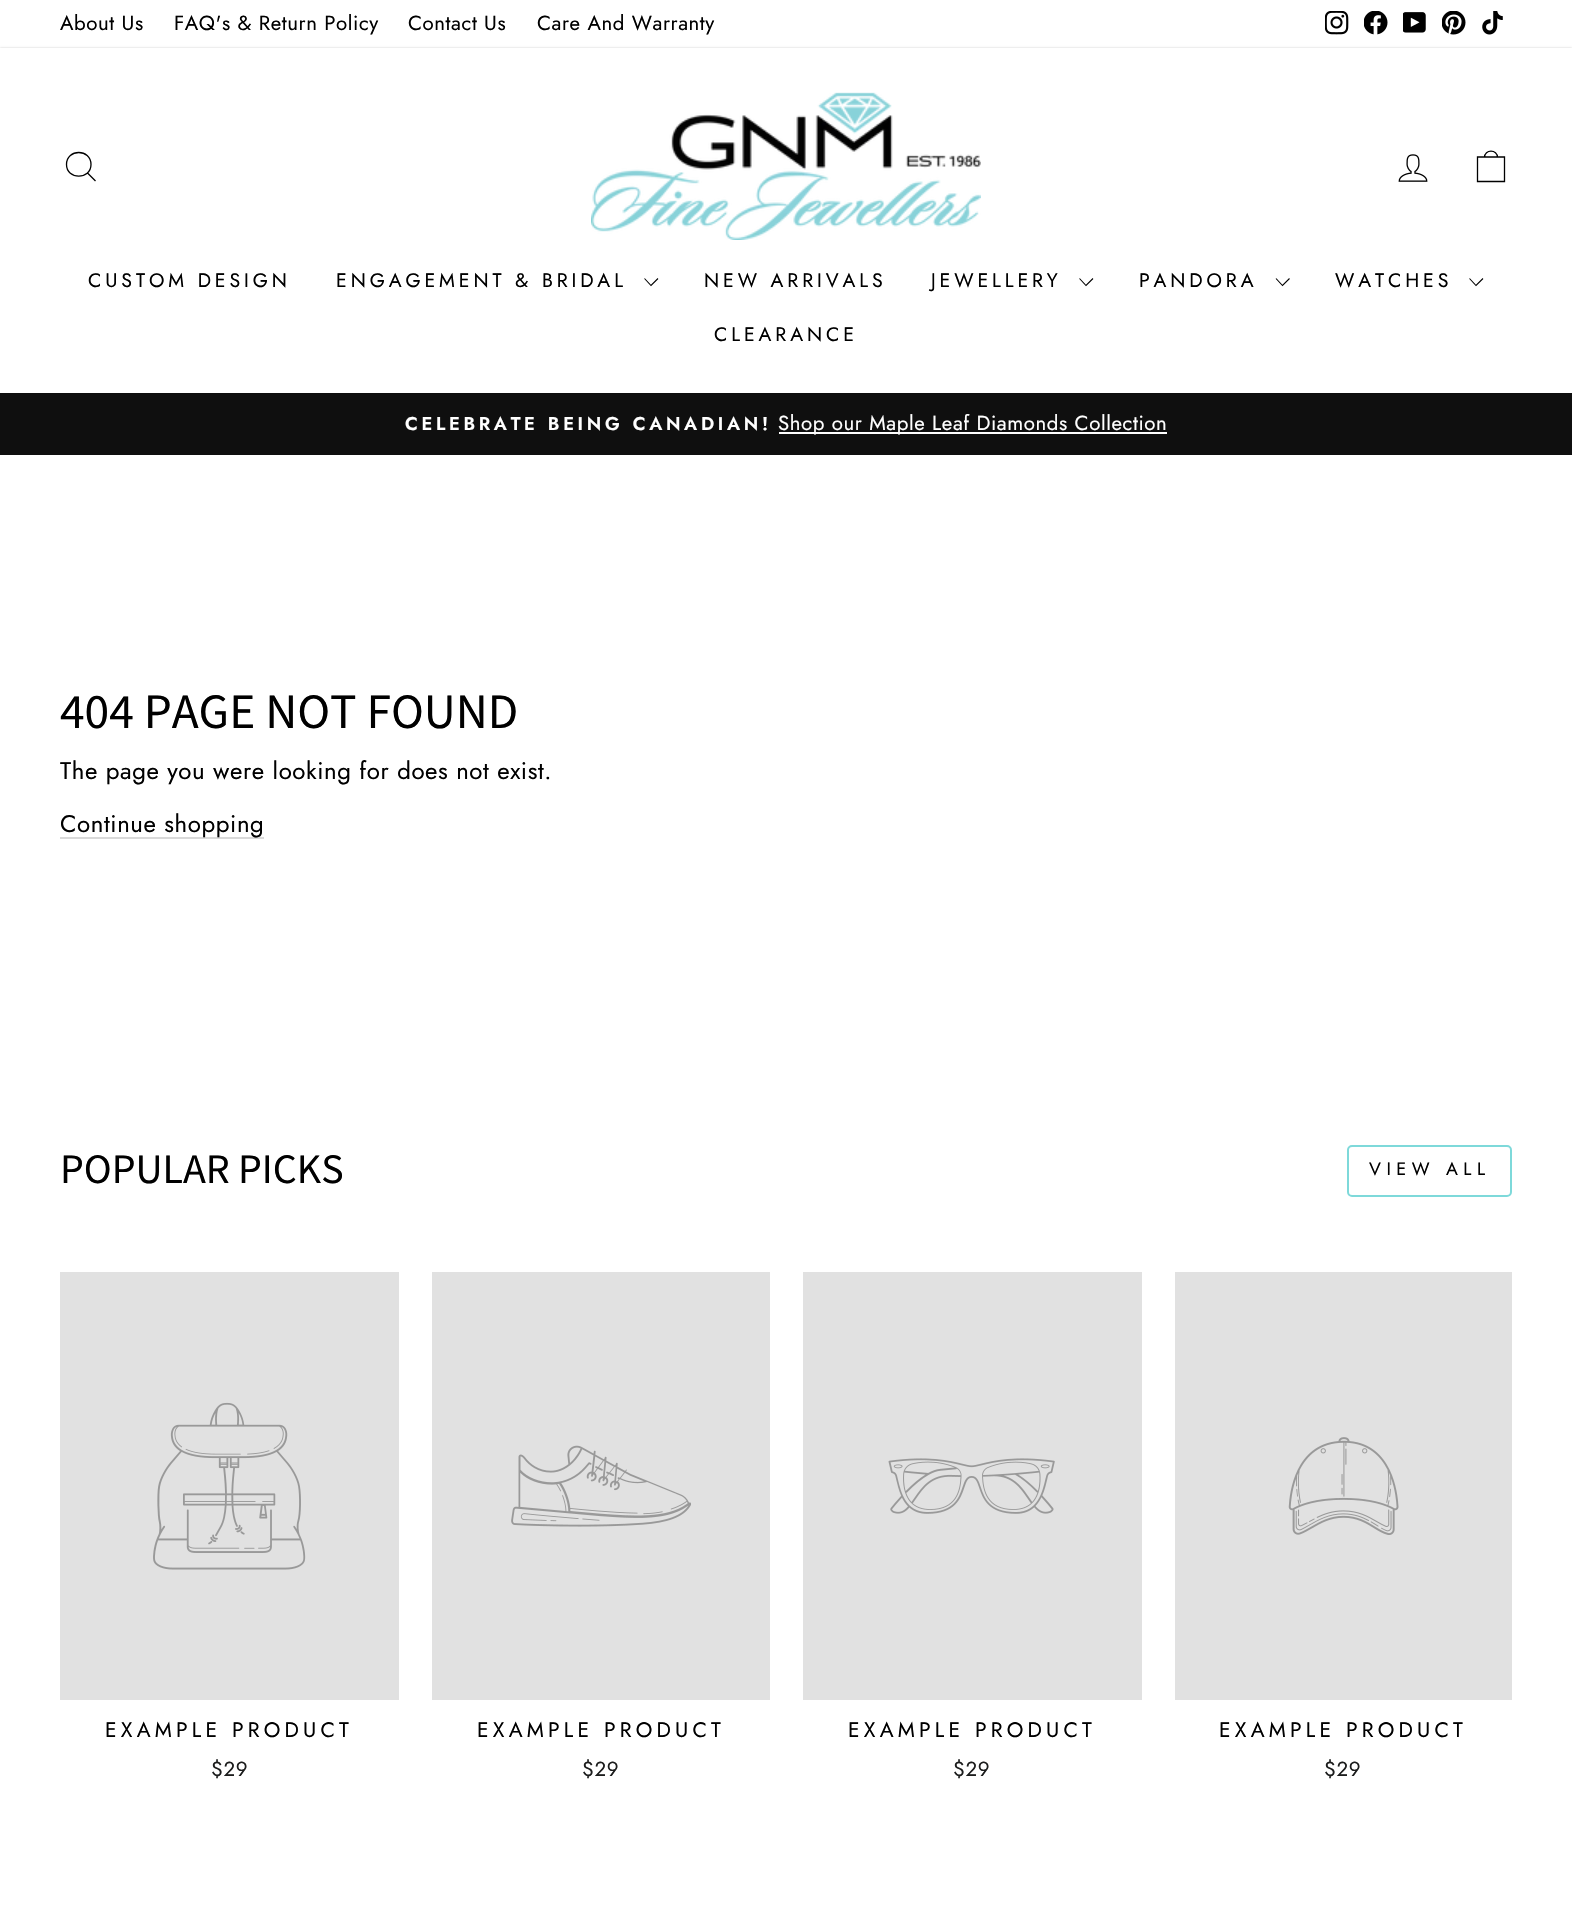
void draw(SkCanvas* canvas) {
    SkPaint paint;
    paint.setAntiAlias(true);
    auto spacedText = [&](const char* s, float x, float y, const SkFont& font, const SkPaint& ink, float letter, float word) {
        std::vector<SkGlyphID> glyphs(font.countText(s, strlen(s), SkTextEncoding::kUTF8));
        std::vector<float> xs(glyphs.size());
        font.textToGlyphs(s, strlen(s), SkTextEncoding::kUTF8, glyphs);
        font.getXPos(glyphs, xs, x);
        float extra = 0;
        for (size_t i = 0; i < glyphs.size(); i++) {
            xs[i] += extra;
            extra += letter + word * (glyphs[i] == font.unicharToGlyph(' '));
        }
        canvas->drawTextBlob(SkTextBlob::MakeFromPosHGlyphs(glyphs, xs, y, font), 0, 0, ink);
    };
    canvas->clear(0xFFFFFFFF);
    SkFont font1(fontMgr->matchFamilyStyle("Jost", SkFontStyle::Normal()), 20.4f);
    font1.setSubpixel(true);
    paint.setColor(0xFF000000);
    spacedText("About Us", 60, 30, font1, paint, 0.6f, 0);
    spacedText("FAQ's & Return Policy", 174, 30, font1, paint, 0.6f, 0);
    spacedText("Contact Us", 408, 30, font1, paint, 0.6f, 0);
    spacedText("Care And Warranty", 537, 30, font1, paint, 0.6f, 0);
    canvas->drawImageRect(SkImages::DeferredFromEncodedData(SkData::MakeFromFileName("img1.png")), SkRect::MakeXYWH(1325, 11, 24, 24), SkSamplingOptions());
    canvas->drawImageRect(SkImages::DeferredFromEncodedData(SkData::MakeFromFileName("img2.png")), SkRect::MakeXYWH(1364, 11, 24, 24), SkSamplingOptions());
    canvas->drawImageRect(SkImages::DeferredFromEncodedData(SkData::MakeFromFileName("img3.png")), SkRect::MakeXYWH(1403, 12, 23, 21), SkSamplingOptions());
    canvas->drawImageRect(SkImages::DeferredFromEncodedData(SkData::MakeFromFileName("img4.png")), SkRect::MakeXYWH(1442, 11, 24, 24), SkSamplingOptions());
    canvas->drawImageRect(SkImages::DeferredFromEncodedData(SkData::MakeFromFileName("img5.png")), SkRect::MakeXYWH(1482, 11, 21, 24), SkSamplingOptions());
    paint.setColor(0xFF0F0F0F);
    canvas->drawRect(SkRect::MakeXYWH(0, 393, 1572, 62), paint);
    canvas->save();
    canvas->clipPath(SkPathBuilder(SkPathFillType::kEvenOdd).moveTo(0, 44).lineTo(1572, 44).lineTo(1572, 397).lineTo(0, 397).close().moveTo(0, 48).lineTo(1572, 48).lineTo(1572, 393).lineTo(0, 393).close().detach(), true);
    paint.setColor(0x33000000);
    paint.setMaskFilter(SkMaskFilter::MakeBlur(kNormal_SkBlurStyle, 1));
    canvas->drawRect(SkRect::MakeXYWH(0, 48, 1572, 345), paint);
    paint.setMaskFilter(nullptr);
    canvas->restore();
    paint.setStyle(SkPaint::kStroke_Style);
    paint.setStrokeWidth(1.3f);
    paint.setColor(0xFF000000);
    canvas->drawPath(SkPathBuilder().moveTo(91, 164.5f).cubicTo(91, 180, 66.5f, 180, 66.5f, 164.5f).cubicTo(66.5f, 148.5f, 91, 148.5f, 91, 164.5f).close().moveTo(95.5f, 181).lineTo(87.5f, 173).detach(), paint);
    canvas->drawImageRect(SkImages::DeferredFromEncodedData(SkData::MakeFromFileName("img6.png")), SkRect::MakeXYWH(591, 92, 390, 148), SkSamplingOptions());
    canvas->drawImageRect(SkImages::DeferredFromEncodedData(SkData::MakeFromFileName("img7.png")), SkRect::MakeXYWH(1398, 154, 30, 28), SkSamplingOptions());
    canvas->drawPath(SkPathBuilder().moveTo(1477.5f, 157).lineTo(1504.5f, 157).lineTo(1504.5f, 181.5f).lineTo(1477.5f, 181.5f).close().moveTo(1484.5f, 157.5f).cubicTo(1484.5f, 149, 1497.5f, 149, 1497.5f, 157.5f).detach(), paint);
    SkFont font2(fontMgr->matchFamilyStyle("Jost", SkFontStyle::Normal()), 19.5f);
    font2.setSubpixel(true);
    paint.setStyle(SkPaint::kFill_Style);
    spacedText("CUSTOM DESIGN", 88, 287, font2, paint, 3.9f, 0);
    spacedText("ENGAGEMENT & BRIDAL", 336, 287, font2, paint, 3.9f, 0);
    paint.setStyle(SkPaint::kStroke_Style);
    paint.setStrokeWidth(1.1f);
    canvas->drawPath(SkPathBuilder().moveTo(644.5f, 278.5f).lineTo(651, 285.5f).lineTo(658, 278.5f).detach(), paint);
    paint.setStyle(SkPaint::kFill_Style);
    spacedText("NEW ARRIVALS", 704, 287, font2, paint, 3.9f, 0);
    spacedText("JEWELLERY", 931, 287, font2, paint, 3.9f, 0);
    paint.setStyle(SkPaint::kStroke_Style);
    canvas->drawPath(SkPathBuilder().moveTo(1079.5f, 278.5f).lineTo(1086, 285.5f).lineTo(1093, 278.5f).detach(), paint);
    paint.setStyle(SkPaint::kFill_Style);
    spacedText("PANDORA", 1139, 287, font2, paint, 3.9f, 0);
    paint.setStyle(SkPaint::kStroke_Style);
    canvas->drawPath(SkPathBuilder().moveTo(1276, 278.5f).lineTo(1282.5f, 285.5f).lineTo(1289.5f, 278.5f).detach(), paint);
    paint.setStyle(SkPaint::kFill_Style);
    spacedText("WATCHES", 1335, 287, font2, paint, 3.9f, 0);
    paint.setStyle(SkPaint::kStroke_Style);
    canvas->drawPath(SkPathBuilder().moveTo(1469.5f, 278.5f).lineTo(1476, 285.5f).lineTo(1483, 278.5f).detach(), paint);
    paint.setStyle(SkPaint::kFill_Style);
    spacedText("CLEARANCE", 714, 341, font2, paint, 3.9f, 0);
    SkFont font3(fontMgr->matchFamilyStyle("Jost", SkFontStyle(600, SkFontStyle::kNormal_Width, SkFontStyle::kUpright_Slant)), 18.4f);
    font3.setSubpixel(true);
    paint.setColor(0xFFFFFFFF);
    spacedText("CELEBRATE BEING CANADIAN!", 405, 430, font3, paint, 3.7f, 0);
    canvas->drawRect(SkRect::MakeXYWH(779, 432, 388, 2), paint);
    spacedText("Shop our Maple Leaf Diamonds Collection", 778, 430, font1, paint, 0.6f, 0);
    SkFont font4(fontMgr->matchFamilyStyle("Source Sans Pro", SkFontStyle::Normal()), 49.5f);
    font4.setSubpixel(true);
    paint.setColor(0xFF000000);
    canvas->drawString("404 PAGE NOT FOUND", 60, 728, font4, paint);
    SkFont font5(fontMgr->matchFamilyStyle("Jost", SkFontStyle::Normal()), 24);
    font5.setSubpixel(true);
    spacedText("The page you were looking for does not exist.", 60, 779, font5, paint, 0.6f, 0);
    paint.setColor(0xFFD9D9D9);
    canvas->drawRect(SkRect::MakeXYWH(60, 837, 204, 2), paint);
    paint.setColor(0xFF000000);
    spacedText("Continue shopping", 60, 832, font5, paint, 0.6f, 0);
    SkFont font6(fontMgr->matchFamilyStyle("Source Sans Pro", SkFontStyle::Normal()), 42);
    font6.setSubpixel(true);
    canvas->drawString("POPULAR PICKS", 60, 1183, font6, paint);
    paint.setStyle(SkPaint::kStroke_Style);
    paint.setStrokeWidth(2);
    paint.setColor(0xFF7ED9DA);
    canvas->drawRoundRect(SkRect::MakeXYWH(1348, 1146, 163, 50), 4, 4, paint);
    SkFont font7(fontMgr->matchFamilyStyle("Jost", SkFontStyle::Normal()), 18);
    font7.setSubpixel(true);
    paint.setStyle(SkPaint::kFill_Style);
    paint.setColor(0xFF000000);
    spacedText("VIEW ALL", 1369, 1175, font7, paint, 5.5f, 0);
    paint.setColor(0xFFE1E1E1);
    canvas->drawRect(SkRect::MakeXYWH(60, 1272, 339, 428), paint);
    canvas->drawImageRect(SkImages::DeferredFromEncodedData(SkData::MakeFromFileName("img8.png")), SkRect::MakeXYWH(153, 1402, 153, 168), SkSamplingOptions());
    SkFont font8(fontMgr->matchFamilyStyle("Jost", SkFontStyle::Normal()), 21);
    font8.setSubpixel(true);
    paint.setColor(0xFF000000);
    spacedText("EXAMPLE PRODUCT", 105, 1737, font8, paint, 4.25f, 0);
    paint.setColor(0xFF1C1D1D);
    spacedText("$29", 211, 1776, font1, paint, 0.6f, 0);
    paint.setColor(0xFFE1E1E1);
    canvas->drawRect(SkRect::MakeXYWH(432, 1272, 338, 428), paint);
    canvas->drawImageRect(SkImages::DeferredFromEncodedData(SkData::MakeFromFileName("img9.png")), SkRect::MakeXYWH(511, 1445, 180, 82), SkSamplingOptions());
    paint.setColor(0xFF000000);
    spacedText("EXAMPLE PRODUCT", 477, 1737, font8, paint, 4.25f, 0);
    paint.setColor(0xFF1C1D1D);
    spacedText("$29", 582, 1776, font1, paint, 0.6f, 0);
    paint.setColor(0xFFE1E1E1);
    canvas->drawRect(SkRect::MakeXYWH(803, 1272, 339, 428), paint);
    canvas->drawImageRect(SkImages::DeferredFromEncodedData(SkData::MakeFromFileName("img10.png")), SkRect::MakeXYWH(888, 1458, 167, 56), SkSamplingOptions());
    paint.setColor(0xFF000000);
    spacedText("EXAMPLE PRODUCT", 848, 1737, font8, paint, 4.25f, 0);
    paint.setColor(0xFF1C1D1D);
    spacedText("$29", 953, 1776, font1, paint, 0.6f, 0);
    paint.setColor(0xFFE1E1E1);
    canvas->drawRect(SkRect::MakeXYWH(1175, 1272, 337, 428), paint);
    canvas->drawImageRect(SkImages::DeferredFromEncodedData(SkData::MakeFromFileName("img11.png")), SkRect::MakeXYWH(1288, 1437, 111, 98), SkSamplingOptions());
    paint.setColor(0xFF000000);
    spacedText("EXAMPLE PRODUCT", 1219, 1737, font8, paint, 4.25f, 0);
    paint.setColor(0xFF1C1D1D);
    spacedText("$29", 1324, 1776, font1, paint, 0.6f, 0);
}
